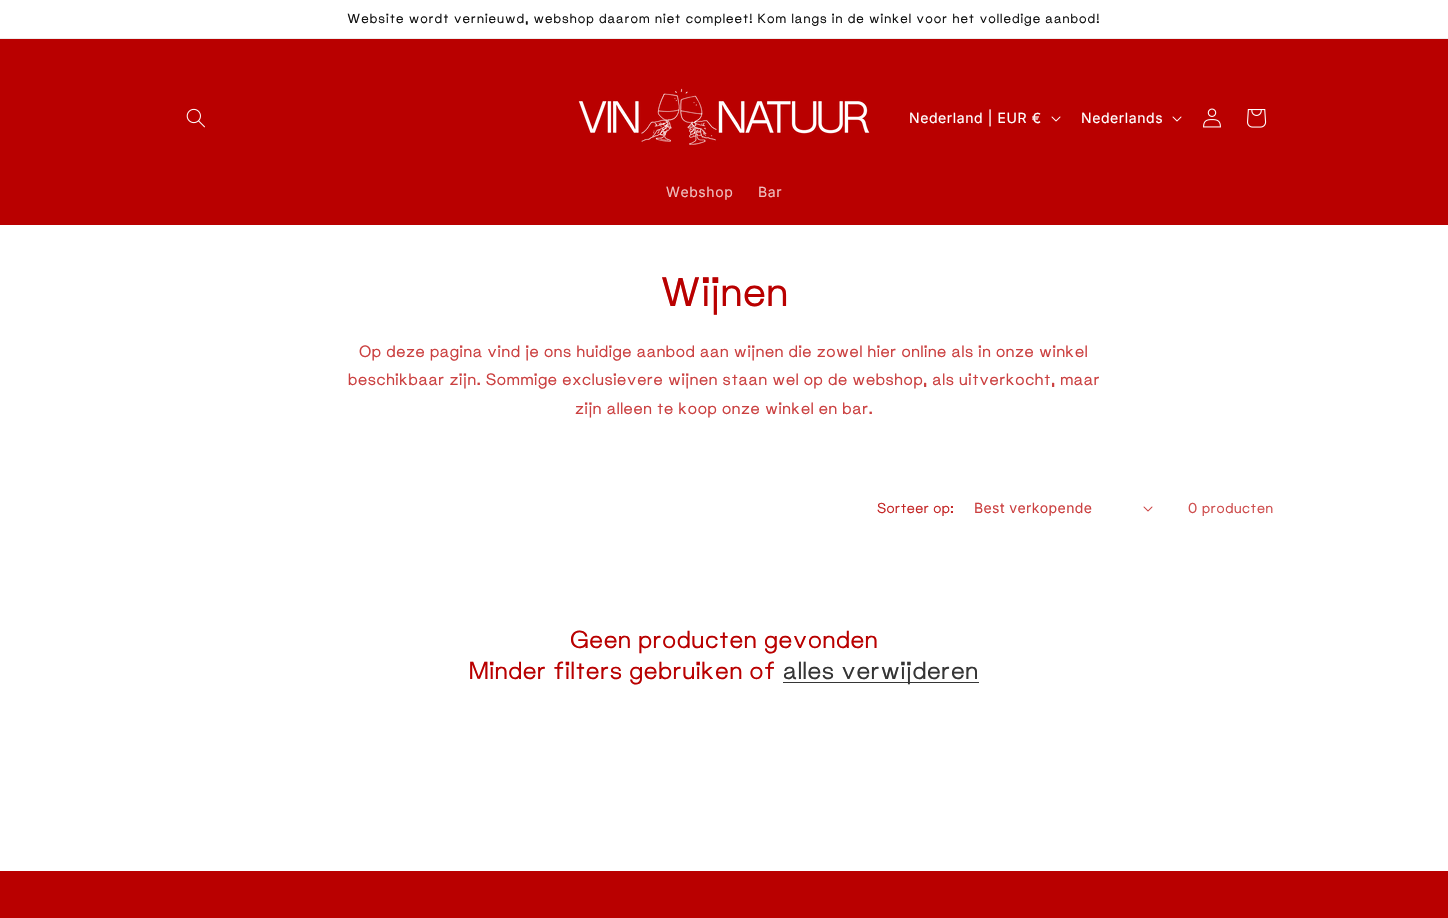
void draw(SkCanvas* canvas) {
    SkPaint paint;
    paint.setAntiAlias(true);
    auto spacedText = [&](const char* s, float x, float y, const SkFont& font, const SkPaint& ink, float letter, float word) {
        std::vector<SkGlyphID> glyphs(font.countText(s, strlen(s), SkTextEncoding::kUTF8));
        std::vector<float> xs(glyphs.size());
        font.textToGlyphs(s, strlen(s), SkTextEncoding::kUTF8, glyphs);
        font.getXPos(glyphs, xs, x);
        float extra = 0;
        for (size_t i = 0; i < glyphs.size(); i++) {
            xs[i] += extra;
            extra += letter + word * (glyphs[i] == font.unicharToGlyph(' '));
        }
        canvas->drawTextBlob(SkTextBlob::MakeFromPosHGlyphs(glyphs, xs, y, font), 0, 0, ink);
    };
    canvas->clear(0xFFFFFFFF);
    paint.setColor(0xFFECECEC);
    canvas->drawRect(SkRect::MakeXYWH(0, 38, 1448, 1), paint);
    SkFont font1(fontMgr->matchFamilyStyle("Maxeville", SkFontStyle::Normal()), 13);
    font1.setSubpixel(true);
    paint.setColor(0xFF121212);
    spacedText("Website wordt vernieuwd, webshop daarom niet compleet! Kom langs in de winkel voor het volledige aanbod!", 347, 23, font1, paint, 1, 0);
    paint.setColor(0xFFB90000);
    canvas->drawRect(SkRect::MakeXYWH(0, 39, 1448, 186), paint);
    canvas->drawImageRect(SkImages::DeferredFromEncodedData(SkData::MakeFromFileName("img1.png")), SkRect::MakeXYWH(186, 108, 19, 20), SkSamplingOptions());
    canvas->drawImageRect(SkImages::DeferredFromEncodedData(SkData::MakeFromFileName("img2.png")), SkRect::MakeXYWH(578, 88, 292, 57), SkSamplingOptions());
    SkFont font2(fontMgr->matchFamilyStyle("Inter", SkFontStyle::Normal()), 14);
    font2.setSubpixel(true);
    paint.setColor(0xFFFFFFFF);
    spacedText("Nederland | EUR €", 909, 123, font2, paint, 0.6f, 0);
    canvas->drawImageRect(SkImages::DeferredFromEncodedData(SkData::MakeFromFileName("img3.png")), SkRect::MakeXYWH(1051, 116, 10, 6), SkSamplingOptions());
    spacedText("Nederlands", 1081, 123, font2, paint, 0.6f, 0);
    canvas->drawImageRect(SkImages::DeferredFromEncodedData(SkData::MakeFromFileName("img3.png")), SkRect::MakeXYWH(1172, 116, 10, 6), SkSamplingOptions());
    canvas->drawImageRect(SkImages::DeferredFromEncodedData(SkData::MakeFromFileName("img4.png")), SkRect::MakeXYWH(1203, 108, 18, 20), SkSamplingOptions());
    canvas->drawImageRect(SkImages::DeferredFromEncodedData(SkData::MakeFromFileName("img5.png")), SkRect::MakeXYWH(1247, 109, 20, 19), SkSamplingOptions());
    paint.setColor(0xFFEEBFBF);
    spacedText("Webshop", 666, 197, font2, paint, 0.6f, 0);
    spacedText("Bar", 758, 197, font2, paint, 0.6f, 0);
    SkFont font3(fontMgr->matchFamilyStyle("Maxeville", SkFontStyle::Normal()), 40);
    font3.setSubpixel(true);
    paint.setColor(0xFFB90000);
    spacedText("Wijnen", 660, 306, font3, paint, 0.6f, 0);
    SkFont font4(fontMgr->matchFamilyStyle("Maxeville", SkFontStyle::Normal()), 16);
    font4.setSubpixel(true);
    paint.setColor(0xFFCB4040);
    spacedText("Op deze pagina vind je ons huidige aanbod aan wijnen die zowel hier online als in onze winkel", 359, 357, font4, paint, 0.6f, 0);
    spacedText("beschikbaar zijn. Sommige exclusievere wijnen staan wel op de webshop, als uitverkocht, maar", 348, 385, font4, paint, 0.6f, 0);
    spacedText("zijn alleen te koop onze winkel en bar.", 575, 414, font4, paint, 0.6f, 0);
    SkFont font5(fontMgr->matchFamilyStyle("Maxeville", SkFontStyle::Normal()), 14);
    font5.setSubpixel(true);
    paint.setColor(0xFFC42626);
    spacedText("Sorteer op:", 877, 513, font5, paint, 0.4f, 0);
    paint.setColor(0xFFCB4040);
    spacedText("Best verkopende", 974, 513, font2, paint, 0.4f, 0);
    canvas->drawImageRect(SkImages::DeferredFromEncodedData(SkData::MakeFromFileName("img6.png")), SkRect::MakeXYWH(1143, 506, 10, 6), SkSamplingOptions());
    paint.setColor(0xFFCE4D4D);
    spacedText("0 producten", 1188, 513, font5, paint, 0.6f, 0);
    SkFont font6(fontMgr->matchFamilyStyle("Maxeville", SkFontStyle::Normal()), 24);
    font6.setSubpixel(true);
    paint.setColor(0xFFB90000);
    spacedText("Geen producten gevonden", 570, 648, font6, paint, 0.6f, 0);
    spacedText("Minder filters gebruiken of", 469, 679, font6, paint, 0.6f, 0);
    paint.setColor(0xFF363636);
    canvas->drawRect(SkRect::MakeXYWH(783, 682, 196, 1), paint);
    paint.setColor(0xFF353535);
    spacedText("alles verwijderen", 783, 679, font6, paint, 0.6f, 0);
    paint.setColor(0xFFB90000);
    canvas->drawRect(SkRect::MakeXYWH(0, 871, 1448, 47), paint);
}
